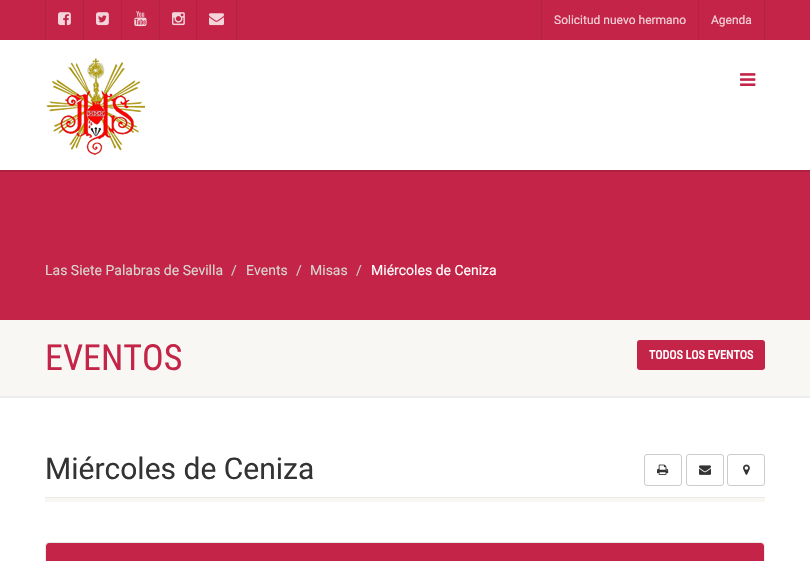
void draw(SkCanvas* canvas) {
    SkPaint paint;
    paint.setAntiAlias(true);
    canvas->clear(0xFFFFFFFF);
    paint.setColor(0xFFC42447);
    canvas->drawRect(SkRect::MakeXYWH(0, 0, 810, 40), paint);
    paint.setColor(0xFFB42141);
    canvas->drawRect(SkRect::MakeXYWH(83, 0, 1, 40), paint);
    canvas->drawRect(SkRect::MakeXYWH(45, 0, 1, 40), paint);
    canvas->drawImageRect(SkImages::DeferredFromEncodedData(SkData::MakeFromFileName("img1.png")), SkRect::MakeXYWH(58, 12, 13, 14), SkSamplingOptions());
    canvas->drawRect(SkRect::MakeXYWH(121, 0, 1, 40), paint);
    canvas->drawImageRect(SkImages::DeferredFromEncodedData(SkData::MakeFromFileName("img2.png")), SkRect::MakeXYWH(96, 12, 13, 14), SkSamplingOptions());
    canvas->drawRect(SkRect::MakeXYWH(159, 0, 1, 40), paint);
    canvas->drawImageRect(SkImages::DeferredFromEncodedData(SkData::MakeFromFileName("img3.png")), SkRect::MakeXYWH(134, 11, 13, 16), SkSamplingOptions());
    canvas->drawRect(SkRect::MakeXYWH(196, 0, 1, 40), paint);
    canvas->drawImageRect(SkImages::DeferredFromEncodedData(SkData::MakeFromFileName("img4.png")), SkRect::MakeXYWH(172, 12, 13, 14), SkSamplingOptions());
    canvas->drawRect(SkRect::MakeXYWH(236, 0, 1, 40), paint);
    canvas->drawImageRect(SkImages::DeferredFromEncodedData(SkData::MakeFromFileName("img5.png")), SkRect::MakeXYWH(209, 13, 15, 13), SkSamplingOptions());
    canvas->drawRect(SkRect::MakeXYWH(698, 0, 1, 40), paint);
    canvas->drawRect(SkRect::MakeXYWH(541, 0, 1, 40), paint);
    SkFont font1(fontMgr->matchFamilyStyle("Roboto", SkFontStyle::Normal()), 12);
    font1.setSubpixel(true);
    paint.setColor(0xFFF3D3DA);
    canvas->drawString("Solicitud nuevo hermano", 554, 24, font1, paint);
    paint.setColor(0xFFB42141);
    canvas->drawRect(SkRect::MakeXYWH(764, 0, 1, 40), paint);
    paint.setColor(0xFFF3D3DA);
    canvas->drawString("Agenda", 711, 24, font1, paint);
    paint.setColor(0xFFB02040);
    canvas->drawRect(SkRect::MakeXYWH(0, 170, 810, 2), paint);
    canvas->drawImageRect(SkImages::DeferredFromEncodedData(SkData::MakeFromFileName("img6.png")), SkRect::MakeXYWH(46, 58, 99, 97), SkSamplingOptions());
    canvas->drawImageRect(SkImages::DeferredFromEncodedData(SkData::MakeFromFileName("img7.png")), SkRect::MakeXYWH(740, 73, 16, 13), SkSamplingOptions());
    paint.setColor(0xFFC42447);
    canvas->drawRect(SkRect::MakeXYWH(0, 172, 810, 148), paint);
    SkFont font2(fontMgr->matchFamilyStyle("Roboto", SkFontStyle::Normal()), 14);
    font2.setSubpixel(true);
    paint.setColor(0xFFD8D6D1);
    canvas->drawString("Las Siete Palabras de Sevilla", 45, 275, font2, paint);
    paint.setColor(0xFFCCCCCC);
    canvas->drawString("/", 231, 275, font2, paint);
    paint.setColor(0xFFD8D6D1);
    canvas->drawString("Events", 246, 275, font2, paint);
    paint.setColor(0xFFCCCCCC);
    canvas->drawString("/", 296, 275, font2, paint);
    paint.setColor(0xFFD8D6D1);
    canvas->drawString("Misas", 310, 275, font2, paint);
    paint.setColor(0xFFCCCCCC);
    canvas->drawString("/", 356, 275, font2, paint);
    paint.setColor(0xFFFFFFFF);
    canvas->drawString("Miércoles de Ceniza", 371, 275, font2, paint);
    paint.setColor(0xFFEDEDED);
    canvas->drawRect(SkRect::MakeXYWH(0, 396, 810, 2), paint);
    paint.setColor(0xFFF8F7F3);
    canvas->drawRect(SkRect::MakeXYWH(0, 320, 810, 76), paint);
    SkFont font3(fontMgr->matchFamilyStyle("Roboto Condensed", SkFontStyle::Normal()), 36);
    font3.setSubpixel(true);
    paint.setColor(0xFFC42447);
    canvas->drawString("EVENTOS", 45, 370, font3, paint);
    canvas->drawRoundRect(SkRect::MakeXYWH(637, 340, 128, 30), 3, 3, paint);
    SkFont font4(fontMgr->matchFamilyStyle("Roboto Condensed", SkFontStyle::Bold()), 12);
    font4.setSubpixel(true);
    paint.setColor(0xFFFFFFFF);
    canvas->drawString("TODOS LOS EVENTOS", 649, 359, font4, paint);
    paint.setColor(0xFFECEAE4);
    canvas->drawRect(SkRect::MakeXYWH(45, 497, 720, 1), paint);
    SkFont font5(fontMgr->matchFamilyStyle("Roboto", SkFontStyle::Normal()), 30);
    font5.setSubpixel(true);
    paint.setColor(0xFF333333);
    canvas->drawString("Miércoles de Ceniza", 45, 479, font5, paint);
    paint.setStyle(SkPaint::kStroke_Style);
    paint.setStrokeWidth(1);
    paint.setColor(0xFFCCCCCC);
    canvas->drawRoundRect(SkRect::MakeXYWH(644.5f, 454.5f, 37, 31), 2.5f, 2.5f, paint);
    canvas->drawImageRect(SkImages::DeferredFromEncodedData(SkData::MakeFromFileName("img8.png")), SkRect::MakeXYWH(657, 464, 12, 11), SkSamplingOptions());
    canvas->drawRoundRect(SkRect::MakeXYWH(686.5f, 454.5f, 37, 31), 2.5f, 2.5f, paint);
    canvas->drawImageRect(SkImages::DeferredFromEncodedData(SkData::MakeFromFileName("img9.png")), SkRect::MakeXYWH(699, 465, 12, 10), SkSamplingOptions());
    canvas->drawRoundRect(SkRect::MakeXYWH(727.5f, 454.5f, 37, 31), 2.5f, 2.5f, paint);
    canvas->drawImageRect(SkImages::DeferredFromEncodedData(SkData::MakeFromFileName("img10.png")), SkRect::MakeXYWH(743, 464, 7, 11), SkSamplingOptions());
    paint.setStyle(SkPaint::kFill_Style);
    paint.setColor(0xFFF8F7F3);
    canvas->drawRect(SkRect::MakeXYWH(45, 498, 720, 4), paint);
    paint.setStyle(SkPaint::kStroke_Style);
    paint.setColor(0xFFECEAE4);
    canvas->drawRoundRect(SkRect::MakeXYWH(45.5f, 542.5f, 719, 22), 2.5f, 2.5f, paint);
    paint.setStyle(SkPaint::kFill_Style);
    paint.setColor(0xFFC42447);
    canvas->drawPath(SkPathBuilder().moveTo(49, 543).lineTo(761, 543).cubicTo(762.5f, 543, 764, 544.5f, 764, 546).lineTo(764, 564).lineTo(46, 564).lineTo(46, 546).cubicTo(46, 544.5f, 47.5f, 543, 49, 543).close().detach(), paint);
}
